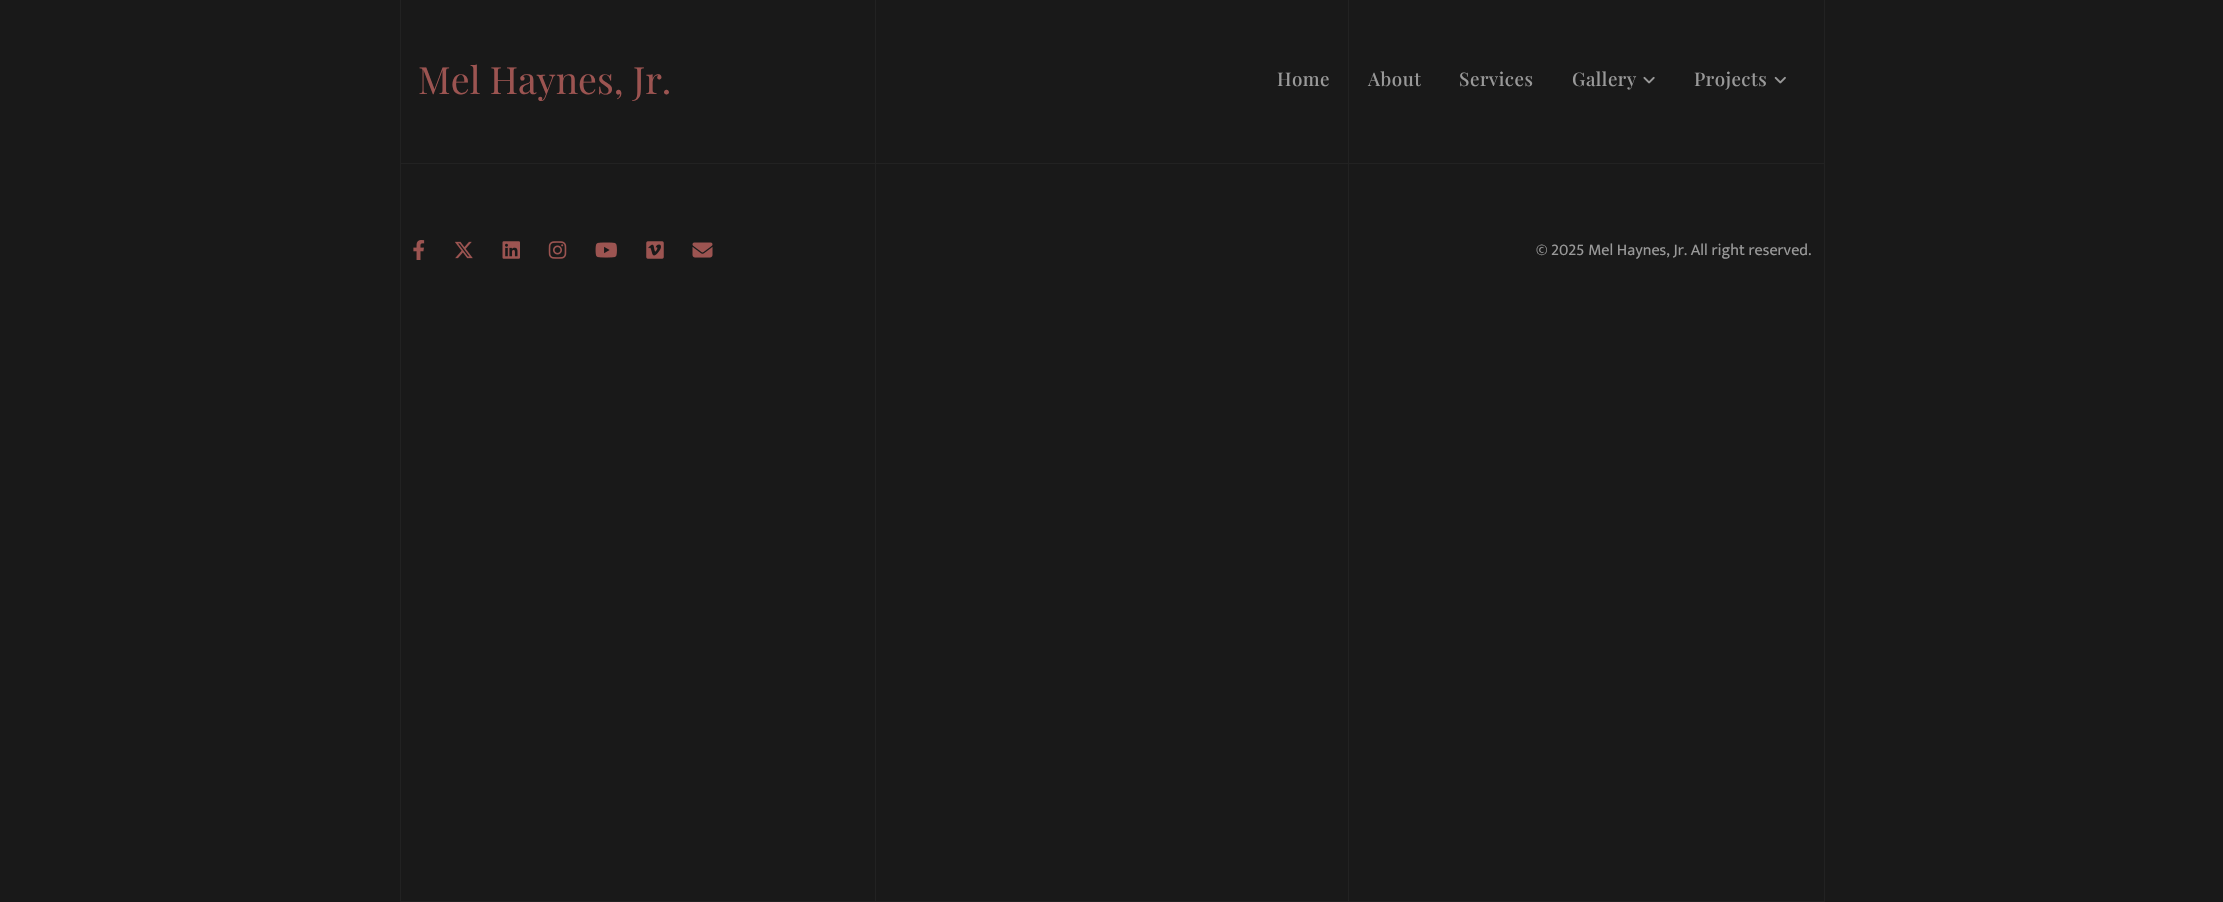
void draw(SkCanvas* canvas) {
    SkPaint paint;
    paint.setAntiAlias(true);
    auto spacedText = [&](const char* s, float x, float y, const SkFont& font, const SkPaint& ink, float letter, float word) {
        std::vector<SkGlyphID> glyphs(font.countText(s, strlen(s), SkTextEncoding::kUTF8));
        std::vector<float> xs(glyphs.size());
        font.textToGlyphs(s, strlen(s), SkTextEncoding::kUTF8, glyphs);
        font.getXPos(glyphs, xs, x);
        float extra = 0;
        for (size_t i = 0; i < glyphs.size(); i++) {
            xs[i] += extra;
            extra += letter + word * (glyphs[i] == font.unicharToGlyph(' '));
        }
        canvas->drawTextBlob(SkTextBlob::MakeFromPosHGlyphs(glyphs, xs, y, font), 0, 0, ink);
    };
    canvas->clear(0xFF191919);
    paint.setColor(0xFF222222);
    canvas->drawRect(SkRect::MakeXYWH(400, 163, 1425, 1), paint);
    canvas->drawRect(SkRect::MakeXYWH(1824, 0, 1, 902), paint);
    canvas->drawRect(SkRect::MakeXYWH(400, 901, 1425, 1), paint);
    canvas->drawRect(SkRect::MakeXYWH(400, 0, 1, 902), paint);
    canvas->drawRect(SkRect::MakeXYWH(1348, 0, 1, 901), paint);
    canvas->drawRect(SkRect::MakeXYWH(875, 0, 1, 901), paint);
    SkFont font1(fontMgr->matchFamilyStyle("Playfair Display", SkFontStyle::Normal()), 37.5f);
    font1.setSubpixel(true);
    paint.setColor(0xFF9C5451);
    canvas->drawString("Mel Haynes, Jr.", 418, 94, font1, paint);
    SkFont font2(fontMgr->matchFamilyStyle("Playfair Display", SkFontStyle(500, SkFontStyle::kNormal_Width, SkFontStyle::kUpright_Slant)), 18.75f);
    font2.setSubpixel(true);
    paint.setColor(0xFF999999);
    spacedText("Home", 1277, 86, font2, paint, 0.5f, 0);
    spacedText("About", 1368, 86, font2, paint, 0.5f, 0);
    spacedText("Services", 1459, 86, font2, paint, 0.5f, 0);
    spacedText("Gallery", 1572, 86, font2, paint, 0.5f, 0);
    canvas->drawImageRect(SkImages::DeferredFromEncodedData(SkData::MakeFromFileName("img1.png")), SkRect::MakeXYWH(1643, 76, 12, 8), SkSamplingOptions());
    spacedText("Projects", 1694, 86, font2, paint, 0.5f, 0);
    canvas->drawImageRect(SkImages::DeferredFromEncodedData(SkData::MakeFromFileName("img2.png")), SkRect::MakeXYWH(1774, 76, 12, 8), SkSamplingOptions());
    canvas->drawImageRect(SkImages::DeferredFromEncodedData(SkData::MakeFromFileName("img3.png")), SkRect::MakeXYWH(413, 240, 12, 20), SkSamplingOptions());
    canvas->drawImageRect(SkImages::DeferredFromEncodedData(SkData::MakeFromFileName("img4.png")), SkRect::MakeXYWH(455, 241, 18, 18), SkSamplingOptions());
    canvas->drawImageRect(SkImages::DeferredFromEncodedData(SkData::MakeFromFileName("img5.png")), SkRect::MakeXYWH(502, 241, 18, 18), SkSamplingOptions());
    canvas->drawImageRect(SkImages::DeferredFromEncodedData(SkData::MakeFromFileName("img6.png")), SkRect::MakeXYWH(548, 241, 19, 18), SkSamplingOptions());
    canvas->drawImageRect(SkImages::DeferredFromEncodedData(SkData::MakeFromFileName("img7.png")), SkRect::MakeXYWH(595, 242, 22, 16), SkSamplingOptions());
    canvas->drawImageRect(SkImages::DeferredFromEncodedData(SkData::MakeFromFileName("img8.png")), SkRect::MakeXYWH(646, 241, 18, 18), SkSamplingOptions());
    canvas->drawImageRect(SkImages::DeferredFromEncodedData(SkData::MakeFromFileName("img9.png")), SkRect::MakeXYWH(692, 242, 21, 16), SkSamplingOptions());
    SkFont font3(fontMgr->matchFamilyStyle("Mukta", SkFontStyle::Normal()), 16.25f);
    font3.setSubpixel(true);
    canvas->drawString("© 2025 Mel Haynes, Jr. All right reserved.", 1536, 255, font3, paint);
}
